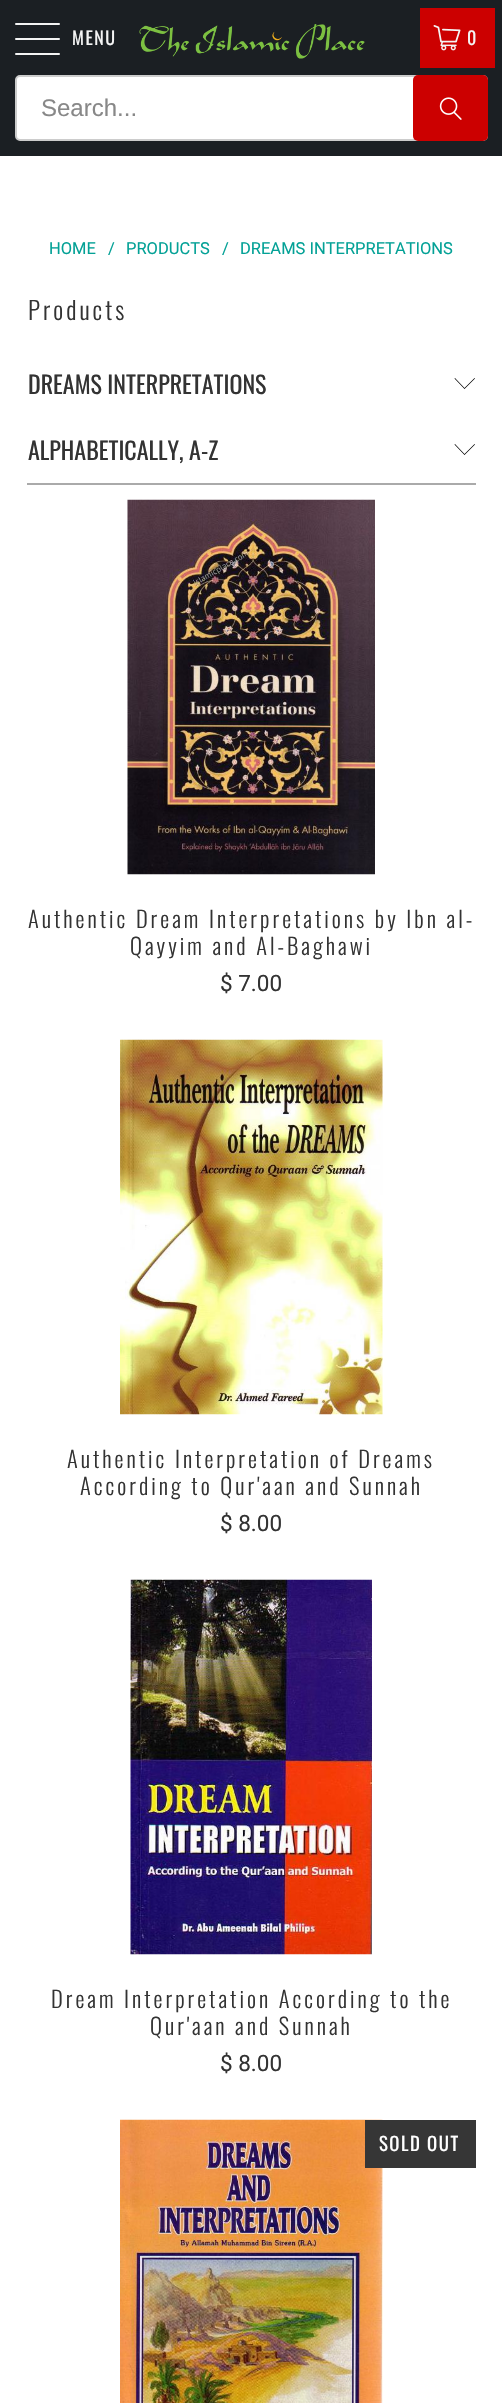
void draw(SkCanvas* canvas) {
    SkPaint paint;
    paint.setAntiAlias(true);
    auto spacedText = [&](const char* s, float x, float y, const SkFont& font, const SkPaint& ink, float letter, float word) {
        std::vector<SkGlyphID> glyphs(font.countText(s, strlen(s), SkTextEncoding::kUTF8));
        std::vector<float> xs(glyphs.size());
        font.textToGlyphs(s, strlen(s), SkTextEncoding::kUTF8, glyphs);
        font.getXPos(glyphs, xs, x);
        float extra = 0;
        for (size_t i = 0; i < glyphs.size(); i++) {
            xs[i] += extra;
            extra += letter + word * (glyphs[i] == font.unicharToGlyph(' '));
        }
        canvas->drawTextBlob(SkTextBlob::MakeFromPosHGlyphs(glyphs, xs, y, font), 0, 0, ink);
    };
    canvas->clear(0xFFFFFFFF);
    paint.setColor(0xFF1B1F23);
    canvas->drawRect(SkRect::MakeXYWH(0, 0, 502, 156), paint);
    paint.setColor(0xFFF4F4F4);
    canvas->drawRoundRect(SkRect::MakeXYWH(15, 23, 45, 2), 1, 1, paint);
    canvas->drawRoundRect(SkRect::MakeXYWH(15, 38, 45, 2), 1, 1, paint);
    canvas->drawRoundRect(SkRect::MakeXYWH(15, 53, 45, 2), 1, 1, paint);
    SkFont font1(fontMgr->matchFamilyStyle("Oswald", SkFontStyle::Normal()), 18);
    font1.setSubpixel(true);
    spacedText("MENU", 72, 45, font1, paint, 1.5f, 0);
    canvas->drawImageRect(SkImages::DeferredFromEncodedData(SkData::MakeFromFileName("img1.png")), SkRect::MakeXYWH(139, 24, 226, 35), SkSamplingOptions());
    paint.setColor(0xFFCC0000);
    canvas->drawRect(SkRect::MakeXYWH(420, 8, 75, 60), paint);
    canvas->drawImageRect(SkImages::DeferredFromEncodedData(SkData::MakeFromFileName("img2.png")), SkRect::MakeXYWH(433, 25, 28, 26), SkSamplingOptions());
    paint.setColor(0xFFF4F4F4);
    spacedText("0", 467, 45, font1, paint, 1.5f, 0);
    paint.setColor(0xFFFFFFFF);
    canvas->drawRoundRect(SkRect::MakeXYWH(16, 76, 471, 64), 4, 4, paint);
    paint.setStyle(SkPaint::kStroke_Style);
    paint.setStrokeWidth(2);
    paint.setColor(0xFFCCCCCC);
    canvas->drawRoundRect(SkRect::MakeXYWH(16, 76, 471, 64), 4, 4, paint);
    SkFont font2(fontMgr->matchFamilyStyle("Liberation Sans", SkFontStyle::Normal()), 24);
    font2.setSubpixel(true);
    paint.setStyle(SkPaint::kFill_Style);
    paint.setColor(0xFF888888);
    canvas->drawString("Search...", 41, 116, font2, paint);
    paint.setColor(0xFFCC0000);
    canvas->drawRoundRect(SkRect::MakeXYWH(413, 75, 75, 66), 5, 5, paint);
    canvas->drawImageRect(SkImages::DeferredFromEncodedData(SkData::MakeFromFileName("img3.png")), SkRect::MakeXYWH(439, 97, 23, 23), SkSamplingOptions());
    SkFont font3(fontMgr->matchFamilyStyle("Roboto", SkFontStyle::Normal()), 16.5f);
    font3.setSubpixel(true);
    paint.setColor(0xFF03A196);
    canvas->drawString("HOME", 49, 254, font3, paint);
    canvas->drawString("/", 108, 254, font3, paint);
    canvas->drawString("PRODUCTS", 126, 254, font3, paint);
    canvas->drawString("/", 222, 254, font3, paint);
    canvas->drawString("DREAMS INTERPRETATIONS", 240, 254, font3, paint);
    SkFont font4(fontMgr->matchFamilyStyle("Oswald", SkFontStyle(300, SkFontStyle::kNormal_Width, SkFontStyle::kUpright_Slant)), 24.75f);
    font4.setSubpixel(true);
    paint.setColor(0xFF333333);
    spacedText("Products", 28, 320, font4, paint, 3, 0);
    paint.setColor(0xFF000000);
    canvas->drawPath(SkPathBuilder().moveTo(464.5f, 389).lineTo(454.5f, 378.5f).lineTo(455, 378).lineTo(464.5f, 388).lineTo(474.5f, 378).lineTo(475, 378.5f).close().detach(), paint);
    SkFont font5(fontMgr->matchFamilyStyle("Oswald", SkFontStyle::Normal()), 24);
    font5.setSubpixel(true);
    paint.setColor(0xFF333333);
    canvas->drawString("DREAMS INTERPRETATIONS", 28, 394, font5, paint);
    paint.setColor(0xFF000000);
    canvas->drawPath(SkPathBuilder().moveTo(464.5f, 455).lineTo(454.5f, 444.5f).lineTo(455, 444).lineTo(464.5f, 454).lineTo(474.5f, 444).lineTo(475, 444.5f).close().detach(), paint);
    paint.setColor(0xFF333333);
    canvas->drawString("ALPHABETICALLY, A-Z", 28, 460, font5, paint);
    paint.setColor(0xFFAAAAAA);
    canvas->drawRect(SkRect::MakeXYWH(27, 483, 449, 2), paint);
    canvas->drawImageRect(SkImages::DeferredFromEncodedData(SkData::MakeFromFileName("img4.png")), SkRect::MakeXYWH(127, 499, 248, 376), SkSamplingOptions());
    SkFont font6(fontMgr->matchFamilyStyle("Oswald", SkFontStyle(300, SkFontStyle::kNormal_Width, SkFontStyle::kUpright_Slant)), 22.5f);
    font6.setSubpixel(true);
    paint.setColor(0xFF333333);
    spacedText("Authentic Dream Interpretations by Ibn al-", 28, 928, font6, paint, 3, 0);
    spacedText("Qayyim and Al-Baghawi", 130, 955, font6, paint, 3, 0);
    SkFont font7(fontMgr->matchFamilyStyle("Roboto", SkFontStyle::Normal()), 22.5f);
    font7.setSubpixel(true);
    canvas->drawString("$ 7.00", 220, 991, font7, paint);
    canvas->drawImageRect(SkImages::DeferredFromEncodedData(SkData::MakeFromFileName("img5.png")), SkRect::MakeXYWH(120, 1039, 263, 376), SkSamplingOptions());
    spacedText("Authentic Interpretation of Dreams", 67, 1468, font6, paint, 3, 0);
    spacedText("According to Qur'aan and Sunnah", 80, 1495, font6, paint, 3, 0);
    canvas->drawString("$ 8.00", 220, 1531, font7, paint);
    canvas->drawImageRect(SkImages::DeferredFromEncodedData(SkData::MakeFromFileName("img6.png")), SkRect::MakeXYWH(130, 1579, 242, 376), SkSamplingOptions());
    spacedText("Dream Interpretation According to the", 51, 2008, font6, paint, 3, 0);
    spacedText("Qur'aan and Sunnah", 150, 2035, font6, paint, 3, 0);
    canvas->drawString("$ 8.00", 220, 2071, font7, paint);
    canvas->drawImageRect(SkImages::DeferredFromEncodedData(SkData::MakeFromFileName("img7.png")), SkRect::MakeXYWH(120, 2119, 263, 284), SkSamplingOptions());
    paint.setColor(0xFF363636);
    canvas->drawRect(SkRect::MakeXYWH(365, 2120, 111, 48), paint);
    SkFont font8(fontMgr->matchFamilyStyle("Oswald", SkFontStyle::Normal()), 18.75f);
    font8.setSubpixel(true);
    paint.setColor(0xFFFFFFFF);
    spacedText("SOLD OUT", 379, 2151, font8, paint, 1.5f, 0);
}
